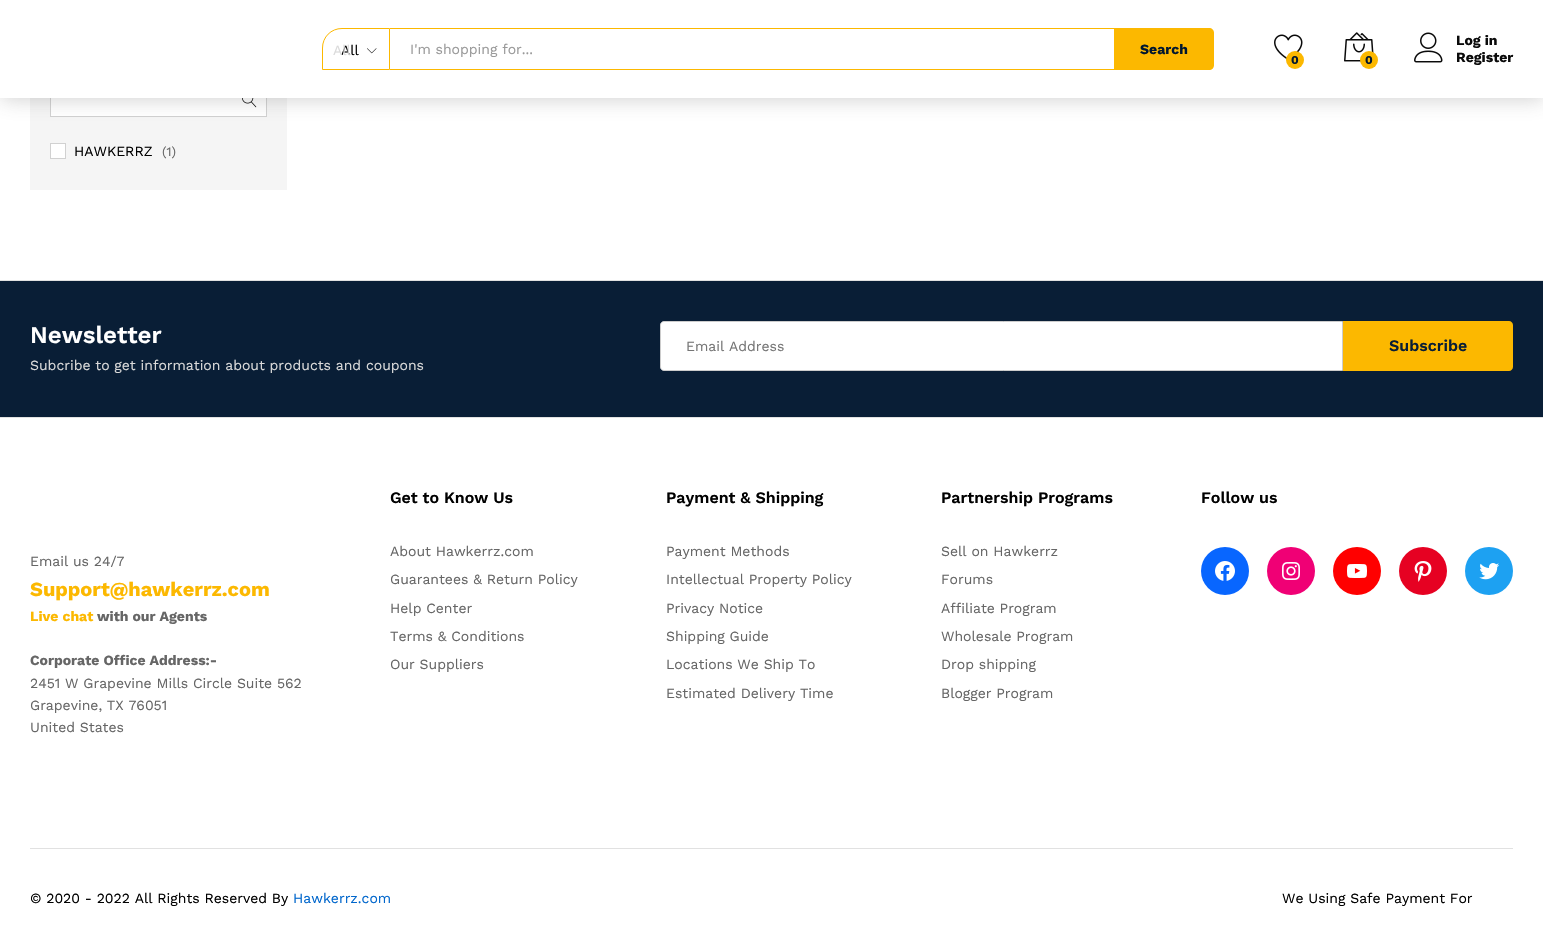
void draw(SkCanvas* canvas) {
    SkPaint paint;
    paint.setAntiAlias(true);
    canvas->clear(0xFFFFFFFF);
    paint.setColor(0xFFF5F5F5);
    canvas->drawRect(SkRect::MakeXYWH(30, 98, 257, 92), paint);
    paint.setColor(0xFFFFFFFF);
    canvas->drawRect(SkRect::MakeXYWH(51, 98, 215, 18), paint);
    paint.setStyle(SkPaint::kStroke_Style);
    paint.setStrokeWidth(1);
    paint.setColor(0xFFD1D1D1);
    canvas->drawRect(SkRect::MakeXYWH(50.5f, 83.5f, 216, 33), paint);
    canvas->drawImageRect(SkImages::DeferredFromEncodedData(SkData::MakeFromFileName("img5.png")), SkRect::MakeXYWH(242, 98, 15, 10), SkSamplingOptions());
    paint.setStyle(SkPaint::kFill_Style);
    paint.setColor(0x47525252);
    paint.setMaskFilter(SkMaskFilter::MakeBlur(kNormal_SkBlurStyle, 10));
    canvas->drawRect(SkRect::MakeXYWH(1, 1, 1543, 98), paint);
    paint.setMaskFilter(nullptr);
    paint.setColor(0xFFFFFFFF);
    canvas->drawRect(SkRect::MakeXYWH(0, 0, 1543, 98), paint);
    paint.setStyle(SkPaint::kStroke_Style);
    paint.setColor(0xFFFCB800);
    canvas->drawPath(SkPathBuilder().moveTo(342, 28.5f).lineTo(389.5f, 28.5f).lineTo(389.5f, 69.5f).lineTo(322.5f, 69.5f).lineTo(322.5f, 48).cubicTo(322.5f, 37, 331, 28.5f, 342, 28.5f).close().detach(), paint);
    SkFont font1(fontMgr->matchFamilyStyle("Work Sans", SkFontStyle::Normal()), 14);
    font1.setSubpixel(true);
    paint.setStyle(SkPaint::kFill_Style);
    paint.setColor(0xFF000000);
    canvas->drawString("All", 341, 55, font1, paint);
    paint.setColor(0xFFDADADA);
    canvas->drawString("All", 333, 55, font1, paint);
    canvas->drawImageRect(SkImages::DeferredFromEncodedData(SkData::MakeFromFileName("img1.png")), SkRect::MakeXYWH(367, 48, 10, 6), SkSamplingOptions());
    paint.setColor(0xFFFCB800);
    canvas->drawRect(SkRect::MakeXYWH(390, 28, 724, 1), paint);
    canvas->drawRect(SkRect::MakeXYWH(390, 69, 724, 1), paint);
    paint.setColor(0xFF999999);
    canvas->drawString("I'm shopping for...", 410, 54, font1, paint);
    paint.setColor(0xFFFCB800);
    canvas->drawPath(SkPathBuilder().moveTo(1114, 28).lineTo(1209, 28).cubicTo(1212, 28, 1214, 30, 1214, 33).lineTo(1214, 65).cubicTo(1214, 68, 1212, 70, 1209, 70).lineTo(1114, 70).close().detach(), paint);
    SkFont font2(fontMgr->matchFamilyStyle("Work Sans", SkFontStyle::Bold()), 14);
    font2.setSubpixel(true);
    paint.setColor(0xFF01172F);
    canvas->drawString("Search", 1140, 54, font2, paint);
    canvas->drawImageRect(SkImages::DeferredFromEncodedData(SkData::MakeFromFileName("img2.png")), SkRect::MakeXYWH(1274, 34, 29, 26), SkSamplingOptions());
    paint.setColor(0xFFFCB800);
    canvas->drawCircle(1295, 60, 9, paint);
    SkFont font3(fontMgr->matchFamilyStyle("Work Sans", SkFontStyle::Bold()), 12);
    font3.setSubpixel(true);
    paint.setColor(0xFF01172F);
    canvas->drawString("0", 1291, 64, font3, paint);
    canvas->drawImageRect(SkImages::DeferredFromEncodedData(SkData::MakeFromFileName("img3.png")), SkRect::MakeXYWH(1344, 32, 30, 30), SkSamplingOptions());
    paint.setColor(0xFFFCB800);
    canvas->drawCircle(1369, 60, 9, paint);
    paint.setColor(0xFF01172F);
    canvas->drawString("0", 1365, 64, font3, paint);
    canvas->drawImageRect(SkImages::DeferredFromEncodedData(SkData::MakeFromFileName("img4.png")), SkRect::MakeXYWH(1414, 32, 29, 31), SkSamplingOptions());
    paint.setColor(0xFF0A0A0A);
    canvas->drawString("Log in", 1456, 45, font2, paint);
    canvas->drawString("Register", 1456, 62, font2, paint);
    paint.setColor(0xFFFFFFFF);
    canvas->drawRect(SkRect::MakeXYWH(50.5f, 143.5f, 15, 15), paint);
    paint.setStyle(SkPaint::kStroke_Style);
    paint.setColor(0xFFD1D1D1);
    canvas->drawRect(SkRect::MakeXYWH(50.5f, 143.5f, 15, 15), paint);
    paint.setStyle(SkPaint::kFill_Style);
    paint.setColor(0xFF000000);
    canvas->drawString("HAWKERRZ", 74, 156, font1, paint);
    SkFont font4(fontMgr->matchFamilyStyle("Work Sans", SkFontStyle::Normal()), 13);
    font4.setSubpixel(true);
    paint.setColor(0xFF666666);
    canvas->drawString("(1)", 162, 156, font4, paint);
    paint.setColor(0xFFE1E1E1);
    canvas->drawRect(SkRect::MakeXYWH(0, 280, 1543, 1), paint);
    paint.setColor(0xFF091E36);
    canvas->drawRect(SkRect::MakeXYWH(0, 281, 1543, 136), paint);
    paint.setColor(0xFFE1E1E1);
    canvas->drawRect(SkRect::MakeXYWH(0, 417, 1543, 1), paint);
    SkFont font5(fontMgr->matchFamilyStyle("Work Sans", SkFontStyle(600, SkFontStyle::kNormal_Width, SkFontStyle::kUpright_Slant)), 24);
    font5.setSubpixel(true);
    paint.setColor(0xFFFFFFFF);
    canvas->drawString("Newsletter", 30, 343, font5, paint);
    paint.setColor(0xFFDADADA);
    canvas->drawString("Subcribe to get information about products and coupons", 30, 370, font1, paint);
    paint.setColor(0xFFFFFFFF);
    canvas->drawPath(SkPathBuilder().moveTo(664, 321.5f).lineTo(1342.5f, 321.5f).lineTo(1342.5f, 370.5f).lineTo(664, 370.5f).cubicTo(662, 370.5f, 660.5f, 369, 660.5f, 367).lineTo(660.5f, 325).cubicTo(660.5f, 323, 662, 321.5f, 664, 321.5f).close().detach(), paint);
    paint.setStyle(SkPaint::kStroke_Style);
    paint.setColor(0xFFCCCCCC);
    canvas->drawPath(SkPathBuilder().moveTo(664, 321.5f).lineTo(1342.5f, 321.5f).lineTo(1342.5f, 370.5f).lineTo(664, 370.5f).cubicTo(662, 370.5f, 660.5f, 369, 660.5f, 367).lineTo(660.5f, 325).cubicTo(660.5f, 323, 662, 321.5f, 664, 321.5f).close().detach(), paint);
    paint.setStyle(SkPaint::kFill_Style);
    paint.setColor(0xFF757575);
    canvas->drawString("Email Address", 686, 351, font1, paint);
    paint.setColor(0xFFFCB800);
    canvas->drawPath(SkPathBuilder().moveTo(1343, 321).lineTo(1509, 321).cubicTo(1511, 321, 1513, 323, 1513, 325).lineTo(1513, 367).cubicTo(1513, 369, 1511, 371, 1509, 371).lineTo(1343, 371).close().detach(), paint);
    SkFont font6(fontMgr->matchFamilyStyle("Work Sans", SkFontStyle(600, SkFontStyle::kNormal_Width, SkFontStyle::kUpright_Slant)), 16);
    font6.setSubpixel(true);
    paint.setColor(0xFF091E36);
    canvas->drawString("Subscribe", 1389, 351, font6, paint);
    paint.setColor(0xFF666666);
    canvas->drawString("Email us 24/7", 30, 566, font1, paint);
    SkFont font7(fontMgr->matchFamilyStyle("Work Sans", SkFontStyle::Bold()), 20);
    font7.setSubpixel(true);
    paint.setColor(0xFFFCB800);
    canvas->drawString("Support@hawkerrz.com", 30, 596, font7, paint);
    canvas->drawString("Live chat", 30, 621, font2, paint);
    paint.setColor(0xFF666666);
    canvas->drawString("with our Agents", 97, 621, font2, paint);
    canvas->drawString("Corporate Office Address:-", 30, 665, font2, paint);
    canvas->drawString("2451 W Grapevine Mills Circle Suite 562", 30, 688, font1, paint);
    canvas->drawString("Grapevine, TX 76051", 30, 710, font1, paint);
    canvas->drawString("United States", 30, 732, font1, paint);
    paint.setColor(0xFF000000);
    canvas->drawString("Get to Know Us", 390, 503, font6, paint);
    paint.setColor(0xFF666666);
    canvas->drawString("About Hawkerrz.com", 390, 556, font1, paint);
    canvas->drawString("Guarantees & Return Policy", 390, 584, font1, paint);
    canvas->drawString("Help Center", 390, 613, font1, paint);
    canvas->drawString("Terms & Conditions", 390, 641, font1, paint);
    canvas->drawString("Our Suppliers", 390, 669, font1, paint);
    paint.setColor(0xFF000000);
    canvas->drawString("Payment & Shipping", 666, 503, font6, paint);
    paint.setColor(0xFF666666);
    canvas->drawString("Payment Methods", 666, 556, font1, paint);
    canvas->drawString("Intellectual Property Policy", 666, 584, font1, paint);
    canvas->drawString("Privacy Notice", 666, 613, font1, paint);
    canvas->drawString("Shipping Guide", 666, 641, font1, paint);
    canvas->drawString("Locations We Ship To", 666, 669, font1, paint);
    canvas->drawString("Estimated Delivery Time", 666, 698, font1, paint);
    paint.setColor(0xFF000000);
    canvas->drawString("Partnership Programs", 941, 503, font6, paint);
    paint.setColor(0xFF666666);
    canvas->drawString("Sell on Hawkerrz", 941, 556, font1, paint);
    canvas->drawString("Forums", 941, 584, font1, paint);
    canvas->drawString("Affiliate Program", 941, 613, font1, paint);
    canvas->drawString("Wholesale Program", 941, 641, font1, paint);
    canvas->drawString("Drop shipping", 941, 669, font1, paint);
    canvas->drawString("Blogger Program", 941, 698, font1, paint);
    paint.setColor(0xFF000000);
    canvas->drawString("Follow us", 1201, 503, font6, paint);
    paint.setColor(0xFF0866FF);
    canvas->drawCircle(1225, 571, 24, paint);
    canvas->drawImageRect(SkImages::DeferredFromEncodedData(SkData::MakeFromFileName("img6.png")), SkRect::MakeXYWH(1215, 561, 20, 20), SkSamplingOptions());
    paint.setColor(0xFFF00075);
    canvas->drawCircle(1291, 571, 24, paint);
    canvas->drawImageRect(SkImages::DeferredFromEncodedData(SkData::MakeFromFileName("img7.png")), SkRect::MakeXYWH(1282, 562, 18, 18), SkSamplingOptions());
    paint.setColor(0xFFFF0000);
    canvas->drawCircle(1357, 571, 24, paint);
    canvas->drawImageRect(SkImages::DeferredFromEncodedData(SkData::MakeFromFileName("img8.png")), SkRect::MakeXYWH(1347, 564, 20, 14), SkSamplingOptions());
    paint.setColor(0xFFE60122);
    canvas->drawCircle(1423, 571, 24, paint);
    canvas->drawImageRect(SkImages::DeferredFromEncodedData(SkData::MakeFromFileName("img9.png")), SkRect::MakeXYWH(1414, 561, 18, 21), SkSamplingOptions());
    paint.setColor(0xFF1DA1F2);
    canvas->drawCircle(1489, 571, 24, paint);
    canvas->drawImageRect(SkImages::DeferredFromEncodedData(SkData::MakeFromFileName("img10.png")), SkRect::MakeXYWH(1479, 563, 20, 17), SkSamplingOptions());
    paint.setColor(0xFFE1E1E1);
    canvas->drawRect(SkRect::MakeXYWH(30, 848, 1483, 1), paint);
    paint.setColor(0xFF000000);
    canvas->drawString("© 2020 - 2022 All Rights Reserved By", 30, 903, font1, paint);
    paint.setColor(0xFF0066CC);
    canvas->drawString("Hawkerrz.com", 293, 903, font1, paint);
    paint.setColor(0xFF000000);
    canvas->drawString("We Using Safe Payment For", 1282, 903, font1, paint);
}
